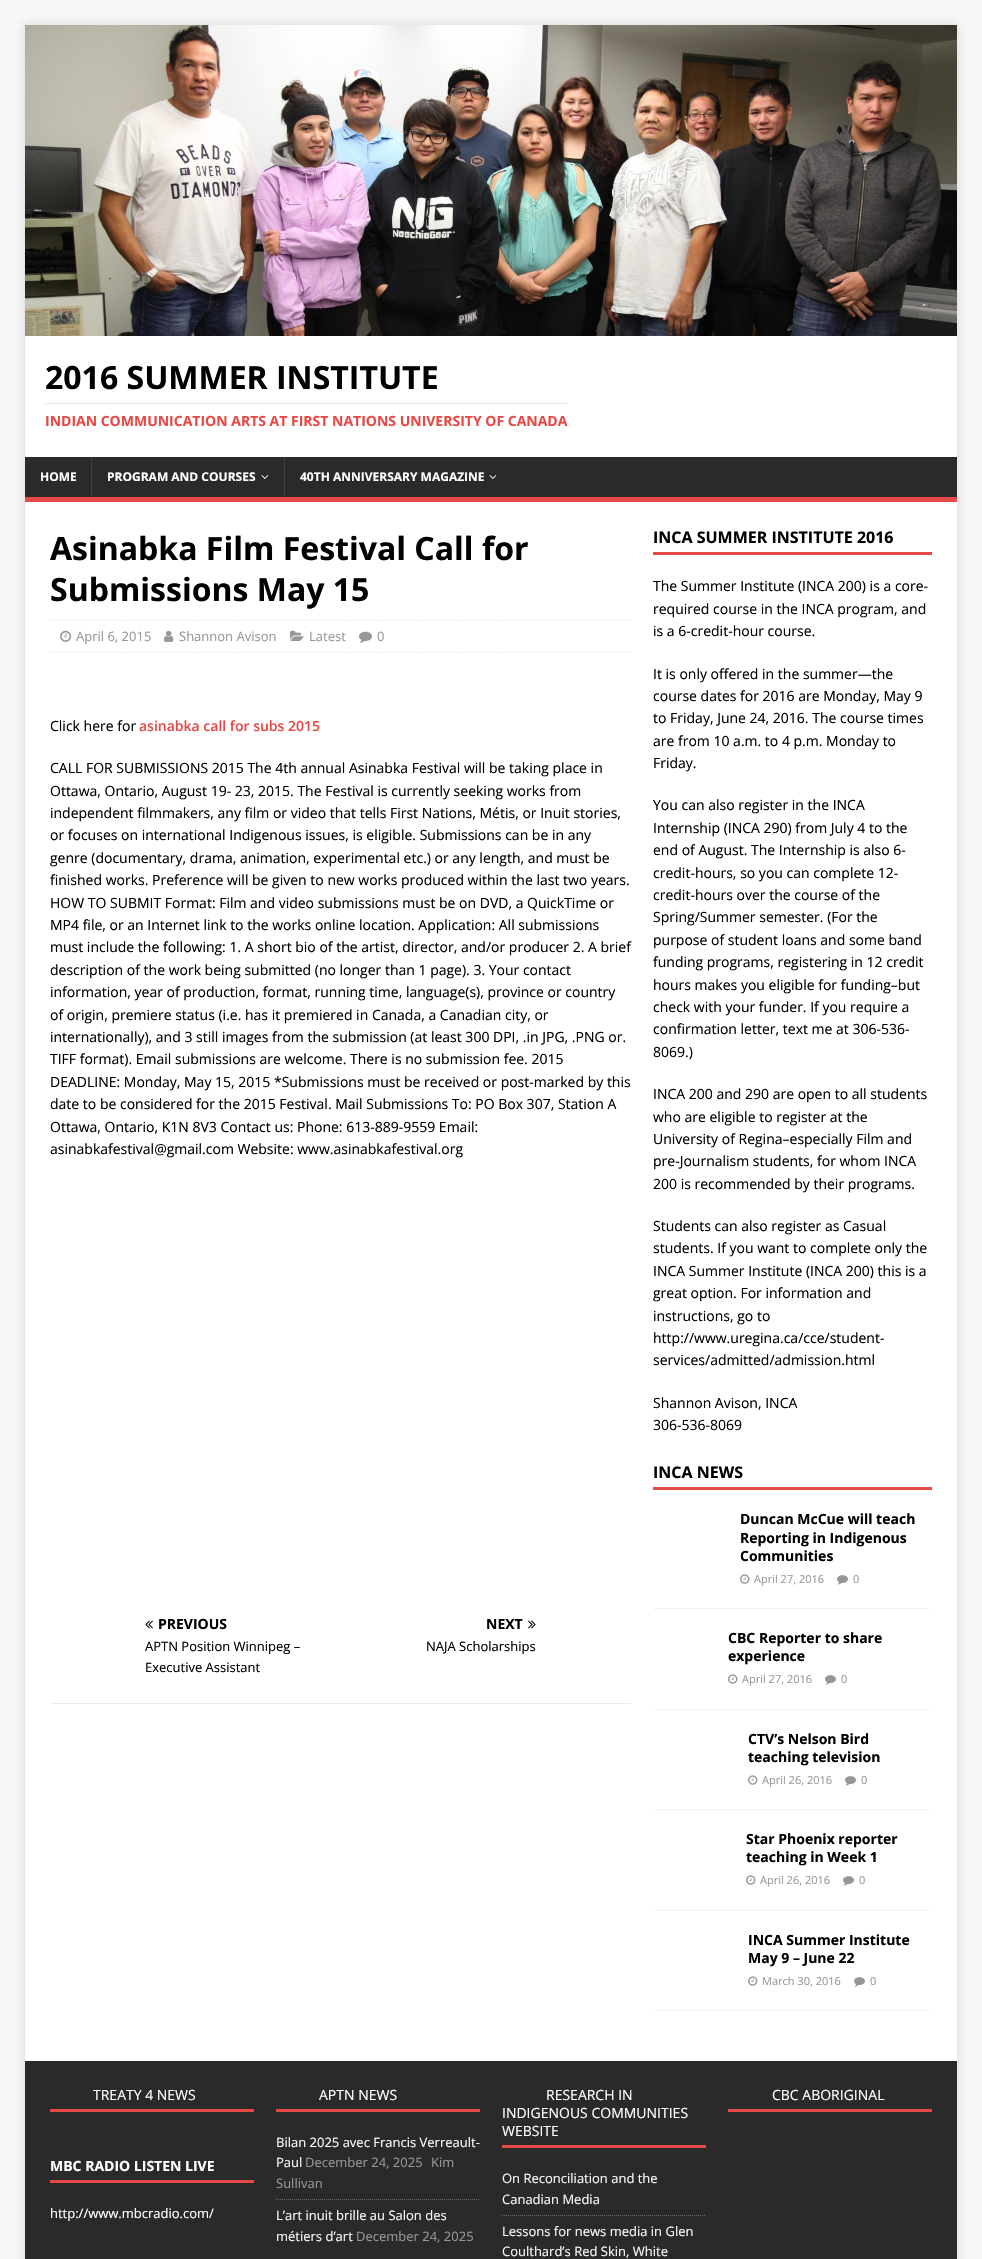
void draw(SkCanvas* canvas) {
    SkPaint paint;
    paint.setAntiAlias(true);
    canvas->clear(0xFFF7F7F7);
    paint.setColor(0x2B323232);
    paint.setMaskFilter(SkMaskFilter::MakeBlur(kNormal_SkBlurStyle, 5));
    canvas->drawRect(SkRect::MakeXYWH(25, 25, 932, 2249), paint);
    paint.setMaskFilter(nullptr);
    paint.setColor(0xFFFFFFFF);
    canvas->drawRect(SkRect::MakeXYWH(25, 336, 932, 121), paint);
    canvas->drawImageRect(SkImages::DeferredFromEncodedData(SkData::MakeFromFileName("img1.png")), SkRect::MakeXYWH(25, 25, 932, 311), SkSamplingOptions());
    SkFont font1(fontMgr->matchFamilyStyle("Open Sans", SkFontStyle::Bold()), 32);
    font1.setSubpixel(true);
    paint.setColor(0xFF000000);
    canvas->drawString("2016 SUMMER INSTITUTE", 45, 389, font1, paint);
    paint.setColor(0xFFE5E5E5);
    canvas->drawRect(SkRect::MakeXYWH(45, 403, 522, 1), paint);
    SkFont font2(fontMgr->matchFamilyStyle("Open Sans", SkFontStyle::Bold()), 14);
    font2.setSubpixel(true);
    paint.setColor(0xFFE64946);
    canvas->drawString("INDIAN COMMUNICATION ARTS AT FIRST NATIONS UNIVERSITY OF CANADA", 45, 426, font2, paint);
    paint.setColor(0xFF2A2A2A);
    canvas->drawRect(SkRect::MakeXYWH(25, 457, 932, 40), paint);
    paint.setColor(0xFFE64946);
    canvas->drawRect(SkRect::MakeXYWH(25, 497, 932, 5), paint);
    SkFont font3(fontMgr->matchFamilyStyle("Open Sans", SkFontStyle::Bold()), 12);
    font3.setSubpixel(true);
    paint.setColor(0xFFFFFFFF);
    canvas->drawString("HOME", 40, 481, font3, paint);
    paint.setColor(0xFF3F3F3F);
    canvas->drawRect(SkRect::MakeXYWH(91, 457, 1, 40), paint);
    paint.setColor(0xFFFFFFFF);
    canvas->drawString("PROGRAM AND COURSES", 107, 481, font3, paint);
    canvas->drawImageRect(SkImages::DeferredFromEncodedData(SkData::MakeFromFileName("img2.png")), SkRect::MakeXYWH(261, 475, 8, 4), SkSamplingOptions());
    paint.setColor(0xFF3F3F3F);
    canvas->drawRect(SkRect::MakeXYWH(284, 457, 1, 40), paint);
    paint.setColor(0xFFFFFFFF);
    canvas->drawString("40TH ANNIVERSARY MAGAZINE", 300, 481, font3, paint);
    canvas->drawImageRect(SkImages::DeferredFromEncodedData(SkData::MakeFromFileName("img2.png")), SkRect::MakeXYWH(489, 475, 8, 4), SkSamplingOptions());
    canvas->drawRect(SkRect::MakeXYWH(25, 502, 932, 1559), paint);
    paint.setColor(0xFF000000);
    canvas->drawString("Asinabka Film Festival Call for", 50, 560, font1, paint);
    canvas->drawString("Submissions May 15", 50, 601, font1, paint);
    paint.setStyle(SkPaint::kStroke_Style);
    paint.setStrokeWidth(1);
    paint.setColor(0xFFEBEBEB);
    paint.setPathEffect(SkDashPathEffect::Make({{1, 1}}, 0));
    canvas->drawPath(SkPathBuilder().moveTo(50, 620.5f).lineTo(631, 620.5f).detach(), paint);
    paint.setPathEffect(nullptr);
    paint.setPathEffect(SkDashPathEffect::Make({{1, 1}}, 0));
    canvas->drawPath(SkPathBuilder().moveTo(50, 652.5f).lineTo(631, 652.5f).detach(), paint);
    paint.setPathEffect(nullptr);
    canvas->drawImageRect(SkImages::DeferredFromEncodedData(SkData::MakeFromFileName("img3.png")), SkRect::MakeXYWH(60, 630, 12, 12), SkSamplingOptions());
    SkFont font4(fontMgr->matchFamilyStyle("Open Sans", SkFontStyle::Normal()), 13);
    font4.setSubpixel(true);
    paint.setStyle(SkPaint::kFill_Style);
    paint.setColor(0xFF979797);
    canvas->drawString("April 6, 2015", 76, 641, font4, paint);
    canvas->drawImageRect(SkImages::DeferredFromEncodedData(SkData::MakeFromFileName("img4.png")), SkRect::MakeXYWH(164, 630, 10, 12), SkSamplingOptions());
    canvas->drawString("Shannon Avison", 179, 641, font4, paint);
    canvas->drawImageRect(SkImages::DeferredFromEncodedData(SkData::MakeFromFileName("img5.png")), SkRect::MakeXYWH(290, 630, 14, 11), SkSamplingOptions());
    canvas->drawString("Latest", 309, 641, font4, paint);
    canvas->drawImageRect(SkImages::DeferredFromEncodedData(SkData::MakeFromFileName("img6.png")), SkRect::MakeXYWH(359, 631, 13, 12), SkSamplingOptions());
    canvas->drawString("0", 377, 641, font4, paint);
    SkFont font5(fontMgr->matchFamilyStyle("Open Sans", SkFontStyle::Normal()), 14);
    font5.setSubpixel(true);
    paint.setColor(0xFF000000);
    canvas->drawString("Click here for", 50, 731, font5, paint);
    SkFont font6(fontMgr->matchFamilyStyle("Open Sans", SkFontStyle(600, SkFontStyle::kNormal_Width, SkFontStyle::kUpright_Slant)), 14);
    font6.setSubpixel(true);
    paint.setColor(0xFFE64946);
    canvas->drawString("asinabka call for subs 2015", 139, 731, font6, paint);
    paint.setColor(0xFF000000);
    canvas->drawString("CALL FOR SUBMISSIONS 2015 The 4th annual Asinabka Festival will be taking place in", 50, 773, font5, paint);
    canvas->drawString("Ottawa, Ontario, August 19- 23, 2015. The Festival is currently seeking works from", 50, 796, font5, paint);
    canvas->drawString("independent filmmakers, any film or video that tells First Nations, Métis, or Inuit stories,", 50, 818, font5, paint);
    canvas->drawString("or focuses on international Indigenous issues, is eligible. Submissions can be in any", 50, 840, font5, paint);
    canvas->drawString("genre (documentary, drama, animation, experimental etc.) or any length, and must be", 50, 863, font5, paint);
    canvas->drawString("finished works. Preference will be given to new works produced within the last two years.", 50, 885, font5, paint);
    canvas->drawString("HOW TO SUBMIT Format: Film and video submissions must be on DVD, a QuickTime or", 50, 908, font5, paint);
    canvas->drawString("MP4 file, or an Internet link to the works online location. Application: All submissions", 50, 930, font5, paint);
    canvas->drawString("must include the following: 1. A short bio of the artist, director, and/or producer 2. A brief", 50, 952, font5, paint);
    canvas->drawString("description of the work being submitted (no longer than 1 page). 3. Your contact", 50, 975, font5, paint);
    canvas->drawString("information, year of production, format, running time, language(s), province or country", 50, 997, font5, paint);
    canvas->drawString("of origin, premiere status (i.e. has it premiered in Canada, a Canadian city, or", 50, 1020, font5, paint);
    canvas->drawString("internationally), and 3 still images from the submission (at least 300 DPI, .in JPG, .PNG or.", 50, 1042, font5, paint);
    canvas->drawString("TIFF format). Email submissions are welcome. There is no submission fee. 2015", 50, 1064, font5, paint);
    canvas->drawString("DEADLINE: Monday, May 15, 2015 *Submissions must be received or post-marked by this", 50, 1087, font5, paint);
    canvas->drawString("date to be considered for the 2015 Festival. Mail Submissions To: PO Box 307, Station A", 50, 1109, font5, paint);
    canvas->drawString("Ottawa, Ontario, K1N 8V3 Contact us: Phone: 613-889-9559 Email:", 50, 1132, font5, paint);
    canvas->drawString("asinabkafestival@gmail.com Website: www.asinabkafestival.org", 50, 1154, font5, paint);
    paint.setColor(0xFFEBEBEB);
    canvas->drawRect(SkRect::MakeXYWH(50, 1703, 581, 1), paint);
    canvas->drawImageRect(SkImages::DeferredFromEncodedData(SkData::MakeFromFileName("img7.png")), SkRect::MakeXYWH(145, 1620, 8, 9), SkSamplingOptions());
    paint.setColor(0xFF000000);
    canvas->drawString("PREVIOUS", 158, 1629, font2, paint);
    canvas->drawString("APTN Position Winnipeg –", 145, 1651, font4, paint);
    canvas->drawString("Executive Assistant", 145, 1672, font4, paint);
    canvas->drawString("NEXT", 486, 1629, font2, paint);
    canvas->drawImageRect(SkImages::DeferredFromEncodedData(SkData::MakeFromFileName("img8.png")), SkRect::MakeXYWH(528, 1620, 8, 9), SkSamplingOptions());
    canvas->drawString("NAJA Scholarships", 426, 1651, font4, paint);
    paint.setColor(0xFFE64946);
    canvas->drawRect(SkRect::MakeXYWH(653, 552, 279, 3), paint);
    SkFont font7(fontMgr->matchFamilyStyle("Open Sans", SkFontStyle::Bold()), 16);
    font7.setSubpixel(true);
    paint.setColor(0xFF000000);
    canvas->drawString("INCA SUMMER INSTITUTE 2016", 653, 543, font7, paint);
    canvas->drawString("The Summer Institute (INCA 200) is a core-", 653, 591, font5, paint);
    canvas->drawString("required course in the INCA program, and", 653, 614, font5, paint);
    canvas->drawString("is a 6-credit-hour course.", 653, 636, font5, paint);
    canvas->drawString("It is only offered in the summer—the", 653, 679, font5, paint);
    canvas->drawString("course dates for 2016 are Monday, May 9", 653, 701, font5, paint);
    canvas->drawString("to Friday, June 24, 2016. The course times", 653, 723, font5, paint);
    canvas->drawString("are from 10 a.m. to 4 p.m. Monday to", 653, 746, font5, paint);
    canvas->drawString("Friday.", 653, 768, font5, paint);
    canvas->drawString("You can also register in the INCA", 653, 810, font5, paint);
    canvas->drawString("Internship (INCA 290) from July 4 to the", 653, 833, font5, paint);
    canvas->drawString("end of August. The Internship is also 6-", 653, 855, font5, paint);
    canvas->drawString("credit-hours, so you can complete 12-", 653, 878, font5, paint);
    canvas->drawString("credit-hours over the course of the", 653, 900, font5, paint);
    canvas->drawString("Spring/Summer semester. (For the", 653, 922, font5, paint);
    canvas->drawString("purpose of student loans and some band", 653, 945, font5, paint);
    canvas->drawString("funding programs, registering in 12 credit", 653, 967, font5, paint);
    canvas->drawString("hours makes you eligible for funding–but", 653, 990, font5, paint);
    canvas->drawString("check with your funder. If you require a", 653, 1012, font5, paint);
    canvas->drawString("confirmation letter, text me at 306-536-", 653, 1034, font5, paint);
    canvas->drawString("8069.)", 653, 1057, font5, paint);
    canvas->drawString("INCA 200 and 290 are open to all students", 653, 1099, font5, paint);
    canvas->drawString("who are eligible to register at the", 653, 1122, font5, paint);
    canvas->drawString("University of Regina–especially Film and", 653, 1144, font5, paint);
    canvas->drawString("pre-Journalism students, for whom INCA", 653, 1166, font5, paint);
    canvas->drawString("200 is recommended by their programs.", 653, 1189, font5, paint);
    canvas->drawString("Students can also register as Casual", 653, 1231, font5, paint);
    canvas->drawString("students. If you want to complete only the", 653, 1253, font5, paint);
    canvas->drawString("INCA Summer Institute (INCA 200) this is a", 653, 1276, font5, paint);
    canvas->drawString("great option. For information and", 653, 1298, font5, paint);
    canvas->drawString("instructions, go to", 653, 1321, font5, paint);
    canvas->drawString("http://www.uregina.ca/cce/student-", 653, 1343, font5, paint);
    canvas->drawString("services/admitted/admission.html", 653, 1365, font5, paint);
    canvas->drawString("Shannon Avison, INCA", 653, 1408, font5, paint);
    canvas->drawString("306-536-8069", 653, 1430, font5, paint);
    paint.setColor(0xFFE64946);
    canvas->drawRect(SkRect::MakeXYWH(653, 1487, 279, 3), paint);
    paint.setColor(0xFF000000);
    canvas->drawString("INCA NEWS", 653, 1478, font7, paint);
    paint.setStyle(SkPaint::kStroke_Style);
    paint.setColor(0xFFEBEBEB);
    paint.setPathEffect(SkDashPathEffect::Make({{1, 1}}, 0));
    canvas->drawPath(SkPathBuilder().moveTo(653, 1608.5f).lineTo(932, 1608.5f).detach(), paint);
    paint.setPathEffect(nullptr);
    paint.setStyle(SkPaint::kFill_Style);
    paint.setColor(0xFF000000);
    canvas->drawString("Duncan McCue will teach", 740, 1524, font2, paint);
    canvas->drawString("Reporting in Indigenous", 740, 1543, font2, paint);
    canvas->drawString("Communities", 740, 1561, font2, paint);
    canvas->drawImageRect(SkImages::DeferredFromEncodedData(SkData::MakeFromFileName("img9.png")), SkRect::MakeXYWH(740, 1574, 10, 10), SkSamplingOptions());
    SkFont font8(fontMgr->matchFamilyStyle("Open Sans", SkFontStyle::Normal()), 11);
    font8.setSubpixel(true);
    paint.setColor(0xFF979797);
    canvas->drawString("April 27, 2016", 754, 1583, font8, paint);
    canvas->drawImageRect(SkImages::DeferredFromEncodedData(SkData::MakeFromFileName("img10.png")), SkRect::MakeXYWH(837, 1575, 11, 10), SkSamplingOptions());
    canvas->drawString("0", 853, 1583, font8, paint);
    paint.setStyle(SkPaint::kStroke_Style);
    paint.setColor(0xFFEBEBEB);
    paint.setPathEffect(SkDashPathEffect::Make({{1, 1}}, 0));
    canvas->drawPath(SkPathBuilder().moveTo(653, 1709.5f).lineTo(932, 1709.5f).detach(), paint);
    paint.setPathEffect(nullptr);
    paint.setStyle(SkPaint::kFill_Style);
    paint.setColor(0xFF000000);
    canvas->drawString("CBC Reporter to share", 728, 1643, font2, paint);
    canvas->drawString("experience", 728, 1661, font2, paint);
    canvas->drawImageRect(SkImages::DeferredFromEncodedData(SkData::MakeFromFileName("img9.png")), SkRect::MakeXYWH(728, 1674, 10, 10), SkSamplingOptions());
    paint.setColor(0xFF979797);
    canvas->drawString("April 27, 2016", 742, 1683, font8, paint);
    canvas->drawImageRect(SkImages::DeferredFromEncodedData(SkData::MakeFromFileName("img10.png")), SkRect::MakeXYWH(825, 1675, 11, 10), SkSamplingOptions());
    canvas->drawString("0", 841, 1683, font8, paint);
    paint.setStyle(SkPaint::kStroke_Style);
    paint.setColor(0xFFEBEBEB);
    paint.setPathEffect(SkDashPathEffect::Make({{1, 1}}, 0));
    canvas->drawPath(SkPathBuilder().moveTo(653, 1809.5f).lineTo(932, 1809.5f).detach(), paint);
    paint.setPathEffect(nullptr);
    paint.setStyle(SkPaint::kFill_Style);
    paint.setColor(0xFF000000);
    canvas->drawString("CTV’s Nelson Bird", 748, 1744, font2, paint);
    canvas->drawString("teaching television", 748, 1762, font2, paint);
    canvas->drawImageRect(SkImages::DeferredFromEncodedData(SkData::MakeFromFileName("img9.png")), SkRect::MakeXYWH(748, 1775, 10, 10), SkSamplingOptions());
    paint.setColor(0xFF979797);
    canvas->drawString("April 26, 2016", 762, 1784, font8, paint);
    canvas->drawImageRect(SkImages::DeferredFromEncodedData(SkData::MakeFromFileName("img10.png")), SkRect::MakeXYWH(845, 1776, 11, 10), SkSamplingOptions());
    canvas->drawString("0", 861, 1784, font8, paint);
    paint.setStyle(SkPaint::kStroke_Style);
    paint.setColor(0xFFEBEBEB);
    paint.setPathEffect(SkDashPathEffect::Make({{1, 1}}, 0));
    canvas->drawPath(SkPathBuilder().moveTo(653, 1910.5f).lineTo(932, 1910.5f).detach(), paint);
    paint.setPathEffect(nullptr);
    paint.setStyle(SkPaint::kFill_Style);
    paint.setColor(0xFF000000);
    canvas->drawString("Star Phoenix reporter", 746, 1844, font2, paint);
    canvas->drawString("teaching in Week 1", 746, 1862, font2, paint);
    canvas->drawImageRect(SkImages::DeferredFromEncodedData(SkData::MakeFromFileName("img9.png")), SkRect::MakeXYWH(746, 1875, 10, 10), SkSamplingOptions());
    paint.setColor(0xFF979797);
    canvas->drawString("April 26, 2016", 760, 1884, font8, paint);
    canvas->drawImageRect(SkImages::DeferredFromEncodedData(SkData::MakeFromFileName("img10.png")), SkRect::MakeXYWH(843, 1876, 11, 10), SkSamplingOptions());
    canvas->drawString("0", 859, 1884, font8, paint);
    paint.setStyle(SkPaint::kStroke_Style);
    paint.setColor(0xFFEBEBEB);
    paint.setPathEffect(SkDashPathEffect::Make({{1, 1}}, 0));
    canvas->drawPath(SkPathBuilder().moveTo(653, 2010.5f).lineTo(932, 2010.5f).detach(), paint);
    paint.setPathEffect(nullptr);
    paint.setStyle(SkPaint::kFill_Style);
    paint.setColor(0xFF000000);
    canvas->drawString("INCA Summer Institute", 748, 1945, font2, paint);
    canvas->drawString("May 9 – June 22", 748, 1963, font2, paint);
    canvas->drawImageRect(SkImages::DeferredFromEncodedData(SkData::MakeFromFileName("img9.png")), SkRect::MakeXYWH(748, 1976, 10, 10), SkSamplingOptions());
    paint.setColor(0xFF979797);
    canvas->drawString("March 30, 2016", 762, 1985, font8, paint);
    canvas->drawImageRect(SkImages::DeferredFromEncodedData(SkData::MakeFromFileName("img10.png")), SkRect::MakeXYWH(854, 1977, 11, 10), SkSamplingOptions());
    canvas->drawString("0", 870, 1985, font8, paint);
    paint.setColor(0xFF2A2A2A);
    canvas->drawRect(SkRect::MakeXYWH(25, 2061, 932, 198), paint);
    paint.setColor(0xFFE64946);
    canvas->drawRect(SkRect::MakeXYWH(50, 2109, 204, 3), paint);
    paint.setColor(0xFFFFFFFF);
    canvas->drawString("TREATY 4 NEWS", 93, 2100, font5, paint);
    paint.setColor(0xFFE64946);
    canvas->drawRect(SkRect::MakeXYWH(50, 2180, 204, 3), paint);
    paint.setColor(0xFFFFFFFF);
    canvas->drawString("MBC RADIO LISTEN LIVE", 50, 2171, font2, paint);
    canvas->drawString("http://www.mbcradio.com/", 50, 2218, font4, paint);
    paint.setColor(0xFFE64946);
    canvas->drawRect(SkRect::MakeXYWH(276, 2109, 204, 3), paint);
    paint.setColor(0xFFFFFFFF);
    canvas->drawString("APTN NEWS", 319, 2100, font5, paint);
    paint.setStyle(SkPaint::kStroke_Style);
    paint.setColor(0xFF6A6A6A);
    paint.setPathEffect(SkDashPathEffect::Make({{1, 1}}, 0));
    canvas->drawPath(SkPathBuilder().moveTo(276, 2199.5f).lineTo(480, 2199.5f).detach(), paint);
    paint.setPathEffect(nullptr);
    paint.setStyle(SkPaint::kFill_Style);
    paint.setColor(0xFFF7F7F7);
    canvas->drawString("Bilan 2025 avec Francis Verreault-", 276, 2147, font4, paint);
    canvas->drawString("Paul", 276, 2167, font4, paint);
    paint.setColor(0xFF979797);
    canvas->drawString("December 24, 2025", 305, 2167, font4, paint);
    canvas->drawString("Kim", 431, 2167, font4, paint);
    canvas->drawString("Sullivan", 276, 2188, font4, paint);
    paint.setColor(0xFFF7F7F7);
    canvas->drawString("L’art inuit brille au Salon des", 276, 2220, font4, paint);
    canvas->drawString("métiers d’art", 276, 2241, font4, paint);
    paint.setColor(0xFF979797);
    canvas->drawString("December 24, 2025", 356, 2241, font4, paint);
    paint.setColor(0xFFE64946);
    canvas->drawRect(SkRect::MakeXYWH(502, 2145, 204, 3), paint);
    paint.setColor(0xFFFFFFFF);
    canvas->drawString("RESEARCH IN", 546, 2100, font5, paint);
    canvas->drawString("INDIGENOUS COMMUNITIES", 502, 2118, font5, paint);
    canvas->drawString("WEBSITE", 502, 2136, font5, paint);
    paint.setStyle(SkPaint::kStroke_Style);
    paint.setColor(0xFF6A6A6A);
    paint.setPathEffect(SkDashPathEffect::Make({{1, 1}}, 0));
    canvas->drawPath(SkPathBuilder().moveTo(502, 2215.5f).lineTo(706, 2215.5f).detach(), paint);
    paint.setPathEffect(nullptr);
    paint.setStyle(SkPaint::kFill_Style);
    paint.setColor(0xFFF7F7F7);
    canvas->drawString("On Reconciliation and the", 502, 2183, font4, paint);
    canvas->drawString("Canadian Media", 502, 2204, font4, paint);
    canvas->drawString("Lessons for news media in Glen", 502, 2236, font4, paint);
    canvas->drawString("Coulthard’s Red Skin, White", 502, 2256, font4, paint);
    paint.setColor(0xFFE64946);
    canvas->drawRect(SkRect::MakeXYWH(728, 2109, 204, 3), paint);
    paint.setColor(0xFFFFFFFF);
    canvas->drawString("CBC ABORIGINAL", 772, 2100, font5, paint);
}
